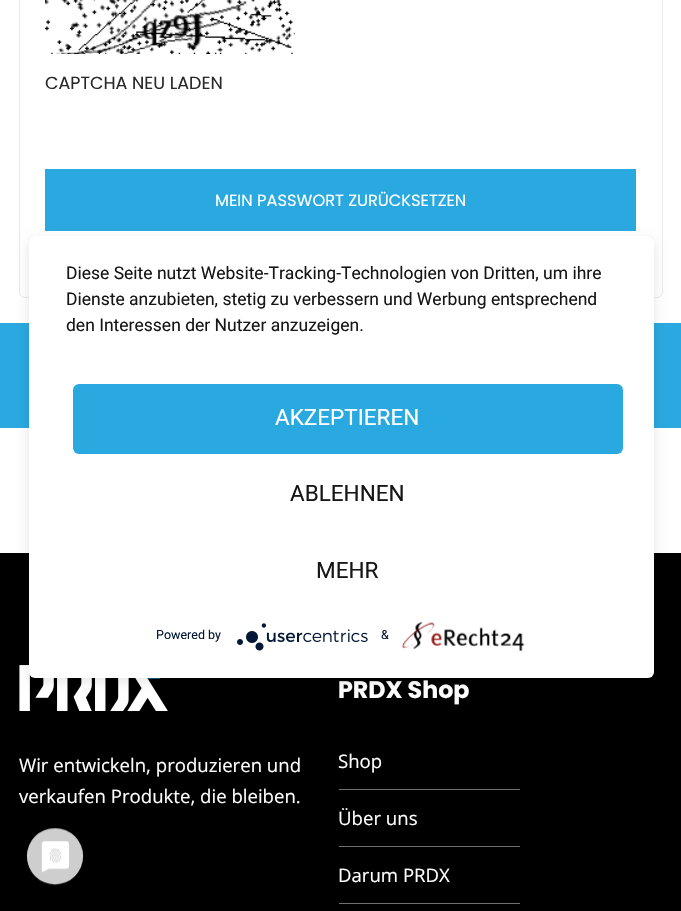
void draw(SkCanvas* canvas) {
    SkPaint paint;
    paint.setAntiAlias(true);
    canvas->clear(0xFFFFFFFF);
    paint.setStyle(SkPaint::kStroke_Style);
    paint.setStrokeWidth(1);
    paint.setColor(0xFFEBEBEB);
    canvas->drawRoundRect(SkRect::MakeXYWH(19.5f, -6.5f, 643, 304), 5.5f, 5.5f, paint);
    canvas->drawImageRect(SkImages::DeferredFromEncodedData(SkData::MakeFromFileName("img1.png")), SkRect::MakeXYWH(45, 0, 250, 54), SkSamplingOptions());
    SkFont font1(fontMgr->matchFamilyStyle("Poppins", SkFontStyle::Normal()), 17.5f);
    font1.setSubpixel(true);
    paint.setStyle(SkPaint::kFill_Style);
    paint.setColor(0xFF292929);
    canvas->drawString("CAPTCHA NEU LADEN", 45, 89, font1, paint);
    paint.setColor(0xFF2AA9E0);
    canvas->drawRect(SkRect::MakeXYWH(45, 169, 591, 62), paint);
    SkFont font2(fontMgr->matchFamilyStyle("Poppins", SkFontStyle::Normal()), 16.25f);
    font2.setSubpixel(true);
    paint.setColor(0xFFFFFFFF);
    canvas->drawString("MEIN PASSWORT ZURÜCKSETZEN", 215, 206, font2, paint);
    paint.setColor(0xFF2AA9E0);
    canvas->drawRect(SkRect::MakeXYWH(0, 323, 681, 105), paint);
    paint.setColor(0xFF000000);
    canvas->drawRect(SkRect::MakeXYWH(0, 553, 681, 358), paint);
    canvas->drawImageRect(SkImages::DeferredFromEncodedData(SkData::MakeFromFileName("img2.png")), SkRect::MakeXYWH(19, 665, 149, 46), SkSamplingOptions());
    SkFont font3(fontMgr->matchFamilyStyle("Open Sans", SkFontStyle::Normal()), 18.6f);
    font3.setSubpixel(true);
    paint.setColor(0xFFFFFFFF);
    canvas->drawString("Wir entwickeln, produzieren und", 19, 772, font3, paint);
    canvas->drawString("verkaufen Produkte, die bleiben.", 19, 803, font3, paint);
    SkFont font4(fontMgr->matchFamilyStyle("Poppins", SkFontStyle::Bold()), 23.75f);
    font4.setSubpixel(true);
    canvas->drawString("PRDX Shop", 338, 698, font4, paint);
    canvas->drawString("Shop", 338, 768, font3, paint);
    paint.setColor(0xFF707070);
    canvas->drawRect(SkRect::MakeXYWH(339, 789, 181, 1), paint);
    paint.setColor(0xFFFFFFFF);
    canvas->drawString("Über uns", 338, 825, font3, paint);
    paint.setColor(0xFF707070);
    canvas->drawRect(SkRect::MakeXYWH(339, 846, 181, 1), paint);
    paint.setColor(0xFFFFFFFF);
    canvas->drawString("Darum PRDX", 338, 882, font3, paint);
    paint.setColor(0xFF707070);
    canvas->drawRect(SkRect::MakeXYWH(339, 903, 181, 1), paint);
    paint.setColor(0x1A000000);
    paint.setMaskFilter(SkMaskFilter::MakeBlur(kNormal_SkBlurStyle, 6));
    canvas->drawRoundRect(SkRect::MakeXYWH(29, 240, 625, 441), 6, 6, paint);
    paint.setMaskFilter(nullptr);
    canvas->save();
    canvas->clipPath(SkPathBuilder().moveTo(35, 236).lineTo(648, 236).cubicTo(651.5f, 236, 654, 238.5f, 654, 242).lineTo(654, 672).cubicTo(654, 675.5f, 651.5f, 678, 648, 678).lineTo(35, 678).cubicTo(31.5f, 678, 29, 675.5f, 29, 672).lineTo(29, 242).cubicTo(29, 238.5f, 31.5f, 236, 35, 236).close().detach(), true);
    paint.setColor(0x4D000000);
    paint.setMaskFilter(SkMaskFilter::MakeBlur(kNormal_SkBlurStyle, 22.5f));
    canvas->drawRect(SkRect::MakeXYWH(29, 244, 625, 441), paint);
    paint.setMaskFilter(nullptr);
    canvas->restore();
    paint.setColor(0xFFFFFFFF);
    canvas->drawRoundRect(SkRect::MakeXYWH(29, 236, 625, 442), 6, 6, paint);
    SkFont font5(fontMgr->matchFamilyStyle("Roboto", SkFontStyle::Normal()), 17.5f);
    font5.setSubpixel(true);
    paint.setColor(0xFF161616);
    canvas->drawString("Diese Seite nutzt Website-Tracking-Technologien von Dritten, um ihre", 66, 279, font5, paint);
    canvas->drawString("Dienste anzubieten, stetig zu verbessern und Werbung entsprechend", 66, 305, font5, paint);
    canvas->drawString("den Interessen der Nutzer anzuzeigen.", 66, 331, font5, paint);
    paint.setColor(0xFF2AA9E0);
    canvas->drawRoundRect(SkRect::MakeXYWH(73, 384, 550, 70), 6, 6, paint);
    SkFont font6(fontMgr->matchFamilyStyle("Roboto", SkFontStyle::Normal()), 22.5f);
    font6.setSubpixel(true);
    paint.setColor(0xFFFFFFFF);
    canvas->drawString("AKZEPTIEREN", 275, 425, font6, paint);
    paint.setColor(0xFF161616);
    canvas->drawString("ABLEHNEN", 290, 501, font6, paint);
    canvas->drawString("MEHR", 316, 578, font6, paint);
    SkFont font7(fontMgr->matchFamilyStyle("Roboto", SkFontStyle::Normal()), 12.5f);
    font7.setSubpixel(true);
    paint.setColor(0xFF021836);
    canvas->drawString("Powered by", 156, 639, font7, paint);
    canvas->drawImageRect(SkImages::DeferredFromEncodedData(SkData::MakeFromFileName("img3.png")), SkRect::MakeXYWH(237, 623, 131, 28), SkSamplingOptions());
    canvas->drawString("&", 381, 639, font7, paint);
    canvas->drawImageRect(SkImages::DeferredFromEncodedData(SkData::MakeFromFileName("img4.png")), SkRect::MakeXYWH(402, 621, 123, 30), SkSamplingOptions());
    canvas->drawImageRect(SkImages::DeferredFromEncodedData(SkData::MakeFromFileName("img5.png")), SkRect::MakeXYWH(26, 828, 58, 58), SkSamplingOptions());
}
